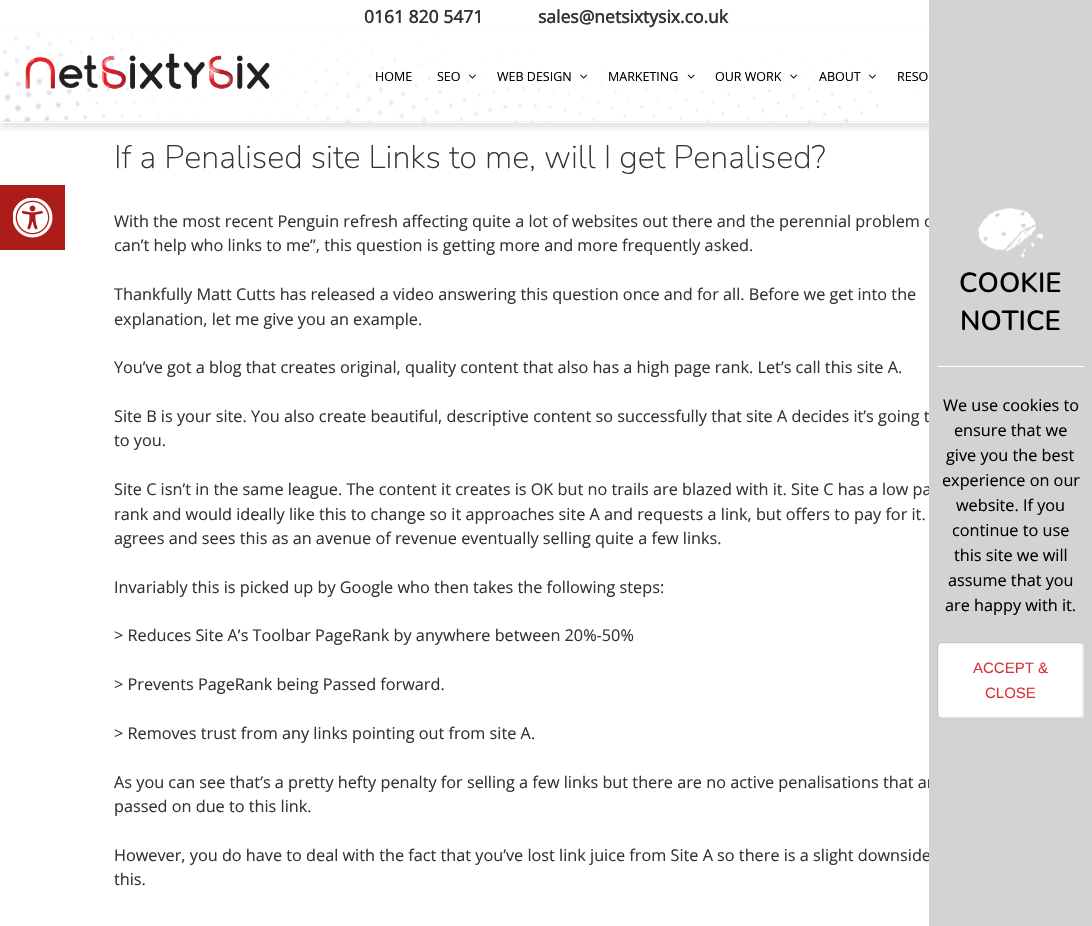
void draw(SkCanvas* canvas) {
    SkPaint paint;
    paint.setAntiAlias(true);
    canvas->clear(0xFFFFFFFF);
    paint.setColor(0xFFAC1C19);
    canvas->drawRect(SkRect::MakeXYWH(0, 185, 65, 65), paint);
    canvas->drawImageRect(SkImages::DeferredFromEncodedData(SkData::MakeFromFileName("img1.png")), SkRect::MakeXYWH(13, 198, 40, 40), SkSamplingOptions());
    paint.setColor(0x1A000000);
    paint.setMaskFilter(SkMaskFilter::MakeBlur(kNormal_SkBlurStyle, 3));
    canvas->drawRect(SkRect::MakeXYWH(0, 35, 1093, 93), paint);
    paint.setMaskFilter(nullptr);
    paint.setColor(0xFFFFFFFF);
    canvas->drawRect(SkRect::MakeXYWH(0, 31, 929, 92), paint);
    canvas->drawImageRect(SkImages::DeferredFromEncodedData(SkData::MakeFromFileName("img2.png")), SkRect::MakeXYWH(249, 36, 630, 87), SkSamplingOptions());
    paint.setColor(0xFFEEEEEE);
    canvas->drawRect(SkRect::MakeXYWH(0, 121, 929, 1), paint);
    canvas->drawImageRect(SkImages::DeferredFromEncodedData(SkData::MakeFromFileName("img3.png")), SkRect::MakeXYWH(2, 31, 210, 91), SkSamplingOptions());
    SkFont font1(fontMgr->matchFamilyStyle("Open Sans", SkFontStyle::Bold()), 17.5f);
    font1.setSubpixel(true);
    paint.setColor(0xFF333333);
    canvas->drawString("0161 820 5471", 364, 23, font1, paint);
    canvas->drawString("sales@netsixtysix.co.uk", 538, 23, font1, paint);
    canvas->drawImageRect(SkImages::DeferredFromEncodedData(SkData::MakeFromFileName("img4.png")), SkRect::MakeXYWH(25, 53, 245, 36), SkSamplingOptions());
    SkFont font2(fontMgr->matchFamilyStyle("Open Sans", SkFontStyle::Normal()), 12.5f);
    font2.setSubpixel(true);
    paint.setColor(0xFF000000);
    canvas->drawString("HOME", 375, 81, font2, paint);
    canvas->drawString("SEO", 437, 81, font2, paint);
    canvas->drawImageRect(SkImages::DeferredFromEncodedData(SkData::MakeFromFileName("img5.png")), SkRect::MakeXYWH(469, 74, 7, 5), SkSamplingOptions());
    canvas->drawString("WEB DESIGN", 497, 81, font2, paint);
    canvas->drawImageRect(SkImages::DeferredFromEncodedData(SkData::MakeFromFileName("img6.png")), SkRect::MakeXYWH(580, 74, 8, 5), SkSamplingOptions());
    canvas->drawString("MARKETING", 608, 81, font2, paint);
    canvas->drawImageRect(SkImages::DeferredFromEncodedData(SkData::MakeFromFileName("img7.png")), SkRect::MakeXYWH(687, 74, 8, 5), SkSamplingOptions());
    canvas->drawString("OUR WORK", 715, 81, font2, paint);
    canvas->drawImageRect(SkImages::DeferredFromEncodedData(SkData::MakeFromFileName("img8.png")), SkRect::MakeXYWH(790, 74, 8, 5), SkSamplingOptions());
    canvas->drawString("ABOUT", 819, 81, font2, paint);
    canvas->drawImageRect(SkImages::DeferredFromEncodedData(SkData::MakeFromFileName("img5.png")), SkRect::MakeXYWH(869, 74, 7, 5), SkSamplingOptions());
    canvas->drawString("RESO", 897, 81, font2, paint);
    canvas->drawImageRect(SkImages::DeferredFromEncodedData(SkData::MakeFromFileName("img9.png")), SkRect::MakeXYWH(898, 34, 28, 86), SkSamplingOptions());
    SkFont font3(fontMgr->matchFamilyStyle("Nunito", SkFontStyle(200, SkFontStyle::kNormal_Width, SkFontStyle::kUpright_Slant)), 32.5f);
    font3.setSubpixel(true);
    paint.setColor(0xFF333333);
    canvas->drawString("If a Penalised site Links to me, will I get Penalised?", 114, 168, font3, paint);
    SkFont font4(fontMgr->matchFamilyStyle("Open Sans", SkFontStyle::Normal()), 16.25f);
    font4.setSubpixel(true);
    canvas->drawString("With the most recent Penguin refresh affecting quite a lot of websites out there and the perennial problem o", 114, 227, font4, paint);
    canvas->drawString("can’t help who links to me”, this question is getting more and more frequently asked.", 114, 251, font4, paint);
    canvas->drawString("Thankfully Matt Cutts has released a video answering this question once and for all. Before we get into the", 114, 300, font4, paint);
    canvas->drawString("explanation, let me give you an example.", 114, 325, font4, paint);
    canvas->drawString("You’ve got a blog that creates original, quality content that also has a high page rank. Let’s call this site A.", 114, 373, font4, paint);
    canvas->drawString("Site B is your site. You also create beautiful, descriptive content so successfully that site A decides it’s going t", 114, 422, font4, paint);
    canvas->drawString("to you.", 114, 446, font4, paint);
    canvas->drawString("Site C isn’t in the same league. The content it creates is OK but no trails are blazed with it. Site C has a low pa", 114, 495, font4, paint);
    canvas->drawString("rank and would ideally like this to change so it approaches site A and requests a link, but offers to pay for it.", 114, 520, font4, paint);
    canvas->drawString("agrees and sees this as an avenue of revenue eventually selling quite a few links.", 114, 544, font4, paint);
    canvas->drawString("Invariably this is picked up by Google who then takes the following steps:", 114, 593, font4, paint);
    canvas->drawString("> Reduces Site A’s Toolbar PageRank by anywhere between 20%-50%", 114, 641, font4, paint);
    canvas->drawString("> Prevents PageRank being Passed forward.", 114, 690, font4, paint);
    canvas->drawString("> Removes trust from any links pointing out from site A.", 114, 739, font4, paint);
    canvas->drawString("As you can see that’s a pretty hefty penalty for selling a few links but there are no active penalisations that ar", 114, 788, font4, paint);
    canvas->drawString("passed on due to this link.", 114, 812, font4, paint);
    canvas->drawString("However, you do have to deal with the fact that you’ve lost link juice from Site A so there is a slight downside", 114, 861, font4, paint);
    canvas->drawString("this.", 114, 885, font4, paint);
    paint.setColor(0xFFD3D3D3);
    canvas->drawRect(SkRect::MakeXYWH(929, 0, 163, 926), paint);
    canvas->drawImageRect(SkImages::DeferredFromEncodedData(SkData::MakeFromFileName("img10.png")), SkRect::MakeXYWH(978, 208, 65, 50), SkSamplingOptions());
    SkFont font5(fontMgr->matchFamilyStyle("Nunito", SkFontStyle(600, SkFontStyle::kNormal_Width, SkFontStyle::kUpright_Slant)), 27.5f);
    font5.setSubpixel(true);
    paint.setColor(0xFF000000);
    canvas->drawString("COOKIE", 959, 292, font5, paint);
    canvas->drawString("NOTICE", 960, 330, font5, paint);
    paint.setColor(0xFFFFFFFF);
    canvas->drawRect(SkRect::MakeXYWH(938, 366, 146, 1), paint);
    paint.setColor(0xFF000000);
    canvas->drawString("We use cookies to", 943, 411, font4, paint);
    canvas->drawString("ensure that we", 954, 436, font4, paint);
    canvas->drawString("give you the best", 946, 461, font4, paint);
    canvas->drawString("experience on our", 942, 486, font4, paint);
    canvas->drawString("website. If you", 956, 511, font4, paint);
    canvas->drawString("continue to use", 952, 536, font4, paint);
    canvas->drawString("this site we will", 954, 561, font4, paint);
    canvas->drawString("assume that you", 948, 586, font4, paint);
    canvas->drawString("are happy with it.", 945, 611, font4, paint);
    paint.setColor(0x0D000000);
    paint.setMaskFilter(SkMaskFilter::MakeBlur(kNormal_SkBlurStyle, 1));
    canvas->drawRoundRect(SkRect::MakeXYWH(938, 644, 146, 76), 4, 4, paint);
    paint.setMaskFilter(nullptr);
    paint.setColor(0xFFFFFFFF);
    canvas->drawRoundRect(SkRect::MakeXYWH(938, 643, 146, 76), 4, 4, paint);
    paint.setStyle(SkPaint::kStroke_Style);
    paint.setStrokeWidth(1.2f);
    paint.setColor(0x40000000);
    canvas->drawPath(SkPathBuilder().moveTo(1082, 717).lineTo(1080, 718).lineTo(941, 718).lineTo(939, 717).detach(), paint);
    paint.setColor(0x1A000000);
    canvas->drawPath(SkPathBuilder().moveTo(939, 717).lineTo(938, 715).lineTo(938, 657.5f).cubicTo(938, 652, 936, 643, 941, 643).lineTo(1080, 643).cubicTo(1085, 643, 1083, 652, 1083, 657.5f).lineTo(1083, 715).lineTo(1082, 717).detach(), paint);
    SkFont font6(fontMgr->matchFamilyStyle("Liberation Sans", SkFontStyle::Normal()), 15);
    font6.setSubpixel(true);
    paint.setStyle(SkPaint::kFill_Style);
    paint.setColor(0xFFDA3338);
    canvas->drawString("ACCEPT &", 973, 673, font6, paint);
    canvas->drawString("CLOSE", 985, 698, font6, paint);
}
